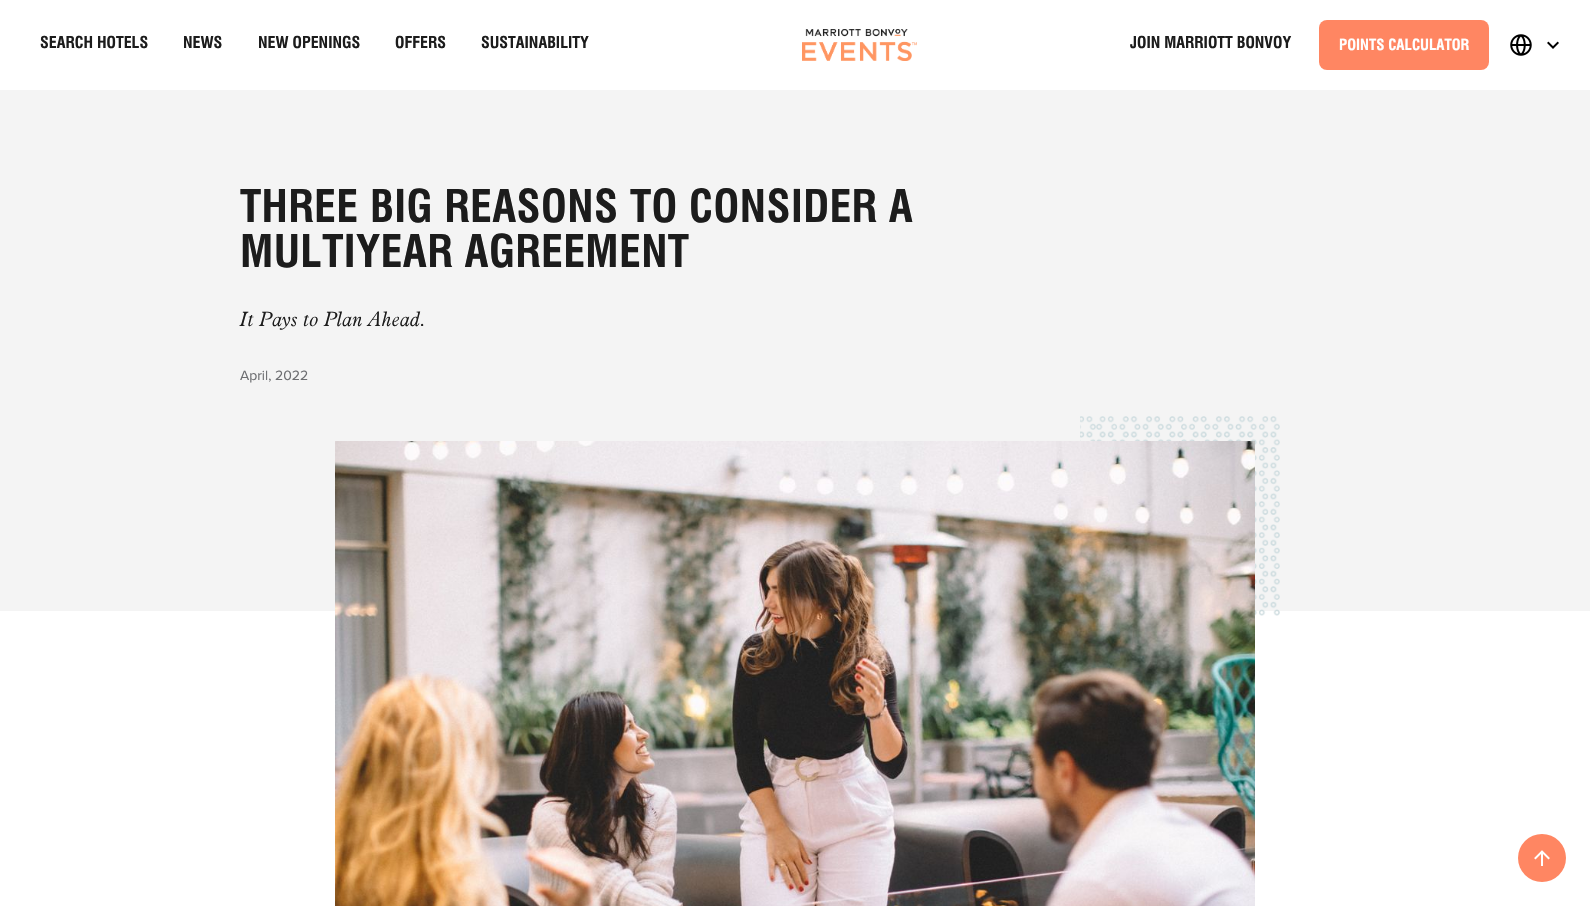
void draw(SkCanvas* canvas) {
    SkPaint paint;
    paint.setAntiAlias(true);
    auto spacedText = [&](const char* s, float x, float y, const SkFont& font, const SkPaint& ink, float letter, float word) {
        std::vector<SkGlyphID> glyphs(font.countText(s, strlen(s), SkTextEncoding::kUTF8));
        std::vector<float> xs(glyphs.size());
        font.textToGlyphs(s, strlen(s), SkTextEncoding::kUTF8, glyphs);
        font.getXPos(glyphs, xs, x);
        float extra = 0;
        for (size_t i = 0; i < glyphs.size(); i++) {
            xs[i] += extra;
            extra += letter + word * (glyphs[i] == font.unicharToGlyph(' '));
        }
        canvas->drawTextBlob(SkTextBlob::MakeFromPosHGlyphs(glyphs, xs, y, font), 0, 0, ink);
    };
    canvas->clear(0xFFFFFFFF);
    SkFont font1(fontMgr->matchFamilyStyle("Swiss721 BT", SkFontStyle::Bold()), 16);
    font1.setSubpixel(true);
    paint.setColor(0xFF1C1C1C);
    canvas->drawString("SEARCH HOTELS", 40, 48, font1, paint);
    canvas->drawString("NEWS", 183, 48, font1, paint);
    canvas->drawString("NEW OPENINGS", 258, 48, font1, paint);
    canvas->drawString("OFFERS", 395, 48, font1, paint);
    canvas->drawString("SUSTAINABILITY", 481, 48, font1, paint);
    canvas->drawImageRect(SkImages::DeferredFromEncodedData(SkData::MakeFromFileName("img1.png")), SkRect::MakeXYWH(802, 29, 115, 32), SkSamplingOptions());
    canvas->drawString("JOIN MARRIOTT BONVOY", 1130, 48, font1, paint);
    paint.setColor(0xFFFF8662);
    canvas->drawRoundRect(SkRect::MakeXYWH(1319, 20, 170, 50), 8, 8, paint);
    SkFont font2(fontMgr->matchFamilyStyle("Swiss721 BT", SkFontStyle::Bold()), 15);
    font2.setSubpixel(true);
    paint.setColor(0xFFFFFFFF);
    canvas->drawString("POINTS CALCULATOR", 1339, 50, font2, paint);
    canvas->drawImageRect(SkImages::DeferredFromEncodedData(SkData::MakeFromFileName("img2.png")), SkRect::MakeXYWH(1510, 34, 22, 22), SkSamplingOptions());
    canvas->drawImageRect(SkImages::DeferredFromEncodedData(SkData::MakeFromFileName("img3.png")), SkRect::MakeXYWH(1547, 41, 12, 8), SkSamplingOptions());
    paint.setColor(0xFFF4F4F4);
    canvas->drawRect(SkRect::MakeXYWH(0, 90, 1590, 521), paint);
    SkFont font3(fontMgr->matchFamilyStyle("Swiss721 BT", SkFontStyle::Bold()), 44);
    font3.setSubpixel(true);
    paint.setColor(0xFF1C1C1C);
    spacedText("THREE BIG REASONS TO CONSIDER A", 240, 222, font3, paint, 0.4f, 0);
    spacedText("MULTIYEAR AGREEMENT", 240, 267, font3, paint, 0.4f, 0);
    SkFont font4(fontMgr->matchFamilyStyle("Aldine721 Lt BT", SkFontStyle(300, SkFontStyle::kNormal_Width, SkFontStyle::kItalic_Slant)), 20);
    font4.setSubpixel(true);
    spacedText("It Pays to Plan Ahead.", 240, 326, font4, paint, 0.2f, 0);
    SkFont font5(fontMgr->matchFamilyStyle("Proxima Nova", SkFontStyle::Normal()), 14);
    font5.setSubpixel(true);
    paint.setColor(0xFF6D6E71);
    canvas->drawString("April, 2022", 240, 380, font5, paint);
    canvas->drawImageRect(SkImages::DeferredFromEncodedData(SkData::MakeFromFileName("img4.png")), SkRect::MakeXYWH(1080, 416, 200, 200), SkSamplingOptions());
    canvas->drawImageRect(SkImages::DeferredFromEncodedData(SkData::MakeFromFileName("img5.png")), SkRect::MakeXYWH(335, 441, 920, 465), SkSamplingOptions());
    paint.setColor(0xFFFF8662);
    canvas->drawCircle(1542, 858, 24, paint);
    canvas->drawImageRect(SkImages::DeferredFromEncodedData(SkData::MakeFromFileName("img6.png")), SkRect::MakeXYWH(1534, 850, 16, 16), SkSamplingOptions());
}
